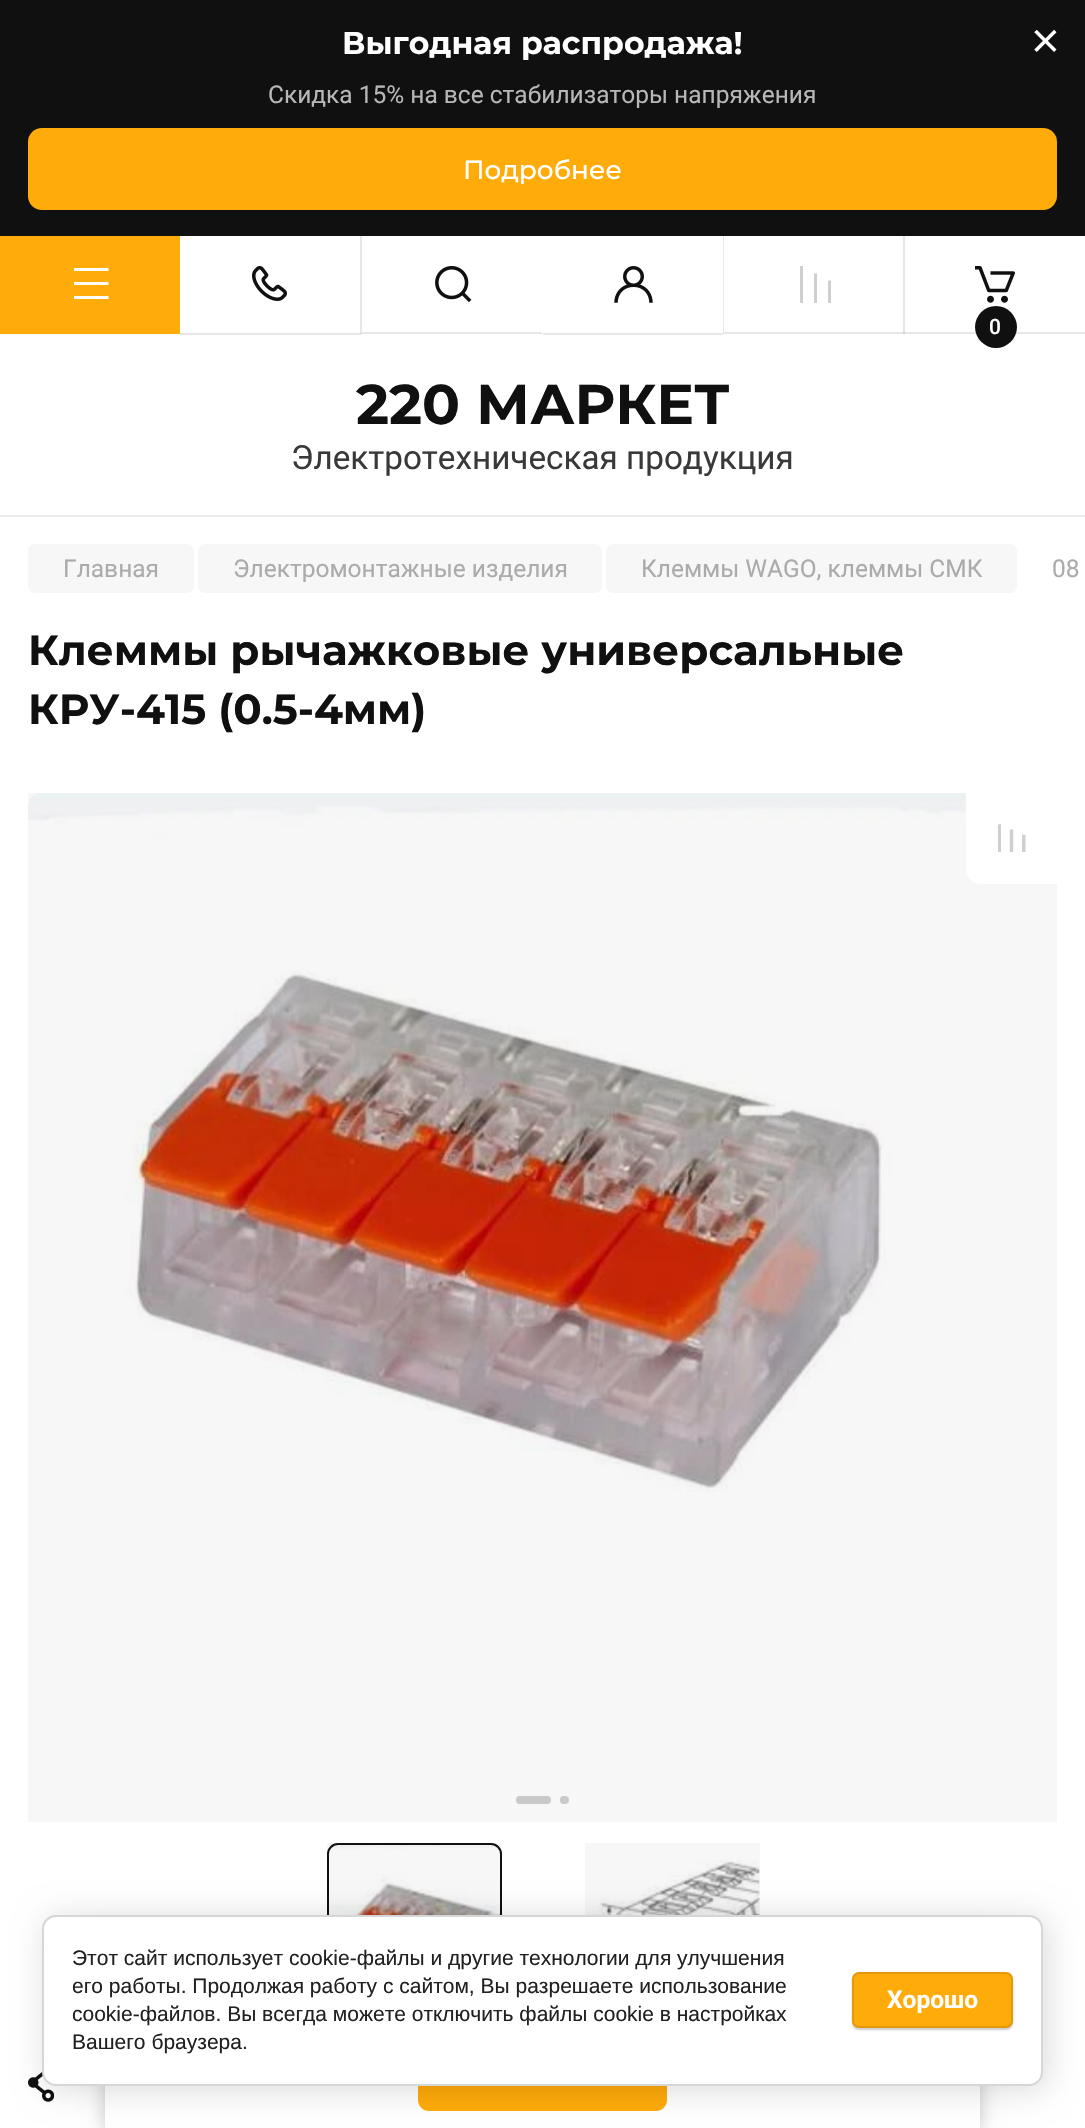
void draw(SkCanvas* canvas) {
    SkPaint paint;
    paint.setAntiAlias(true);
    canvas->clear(0xFF101010);
    SkFont font1(fontMgr->matchFamilyStyle("Montserrat", SkFontStyle::Bold()), 31.5f);
    font1.setSubpixel(true);
    paint.setColor(0xFFFFFFFF);
    canvas->drawString("Выгодная распродажа!", 342, 54, font1, paint);
    SkFont font2(fontMgr->matchFamilyStyle("Roboto", SkFontStyle::Normal()), 24.5f);
    font2.setSubpixel(true);
    paint.setColor(0xFFB7B7B7);
    canvas->drawString("Скидка 15% на все стабилизаторы напряжения", 268, 103, font2, paint);
    paint.setColor(0xFFFFAB09);
    canvas->drawRoundRect(SkRect::MakeXYWH(28, 128, 1029, 82), 14, 14, paint);
    SkFont font3(fontMgr->matchFamilyStyle("Montserrat", SkFontStyle(500, SkFontStyle::kNormal_Width, SkFontStyle::kUpright_Slant)), 26.25f);
    font3.setSubpixel(true);
    paint.setColor(0xFFFFFFFF);
    canvas->drawString("Подробнее", 463, 179, font3, paint);
    canvas->drawImageRect(SkImages::DeferredFromEncodedData(SkData::MakeFromFileName("img1.png")), SkRect::MakeXYWH(1034, 30, 23, 22), SkSamplingOptions());
    canvas->drawRect(SkRect::MakeXYWH(0, 236, 1085, 1892), paint);
    paint.setColor(0xFFFFAB09);
    canvas->drawRect(SkRect::MakeXYWH(0, 236, 180, 98), paint);
    canvas->save();
    canvas->clipRect(SkRect::MakeXYWH(74, 268, 35, 37));
    paint.setColor(0xFFFFFFFF);
    canvas->drawPath(SkPathBuilder().moveTo(73.5f, 268).lineTo(108.5f, 268).lineTo(108.5f, 271).lineTo(73.5f, 271).close().moveTo(73.5f, 282).lineTo(108.5f, 282).lineTo(108.5f, 285).lineTo(73.5f, 285).close().moveTo(108.5f, 296).lineTo(73.5f, 296).lineTo(73.5f, 299).lineTo(108.5f, 299).close().detach(), paint);
    canvas->restore();
    paint.setColor(0xFFE7E7E7);
    canvas->drawRect(SkRect::MakeXYWH(180, 333, 181, 2), paint);
    canvas->drawImageRect(SkImages::DeferredFromEncodedData(SkData::MakeFromFileName("img2.png")), SkRect::MakeXYWH(252, 266, 35, 35), SkSamplingOptions());
    paint.setColor(0x1A101010);
    canvas->drawPath(SkPathBuilder().moveTo(542, 334).lineTo(360, 334).lineTo(362, 332).lineTo(542, 332).close().detach(), paint);
    canvas->drawPath(SkPathBuilder().moveTo(360, 334).lineTo(360, 236).lineTo(362, 236).lineTo(362, 332).close().detach(), paint);
    canvas->drawImageRect(SkImages::DeferredFromEncodedData(SkData::MakeFromFileName("img3.png")), SkRect::MakeXYWH(435, 266, 37, 37), SkSamplingOptions());
    paint.setColor(0xFFE7E7E7);
    canvas->drawRect(SkRect::MakeXYWH(543, 333, 180, 2), paint);
    canvas->drawImageRect(SkImages::DeferredFromEncodedData(SkData::MakeFromFileName("img4.png")), SkRect::MakeXYWH(614, 266, 39, 37), SkSamplingOptions());
    canvas->drawPath(SkPathBuilder().moveTo(905, 334).lineTo(723, 334).lineTo(724, 332).lineTo(905, 332).close().detach(), paint);
    paint.setColor(0x1A101010);
    canvas->drawPath(SkPathBuilder().moveTo(723, 334).lineTo(723, 236).lineTo(724, 236).lineTo(724, 332).close().detach(), paint);
    canvas->save();
    canvas->clipRect(SkRect::MakeXYWH(800, 266, 31, 37));
    paint.setColor(0xFFCFCFCF);
    canvas->drawPath(SkPathBuilder(SkPathFillType::kEvenOdd).moveTo(831, 303).lineTo(831, 280.5f).lineTo(828, 280.5f).lineTo(828, 303).close().moveTo(817, 273.5f).lineTo(817, 303).lineTo(814, 303).lineTo(814, 273.5f).close().moveTo(803, 266).lineTo(803, 303).lineTo(799.5f, 303).lineTo(800, 266).close().detach(), paint);
    canvas->restore();
    paint.setColor(0x1A101010);
    canvas->drawPath(SkPathBuilder().moveTo(1085, 334).lineTo(903, 334).lineTo(905, 332).lineTo(1085, 332).close().detach(), paint);
    canvas->drawPath(SkPathBuilder().moveTo(903, 334).lineTo(903, 236).lineTo(905, 236).lineTo(905, 332).close().detach(), paint);
    canvas->drawImageRect(SkImages::DeferredFromEncodedData(SkData::MakeFromFileName("img5.png")), SkRect::MakeXYWH(975, 266, 40, 37), SkSamplingOptions());
    paint.setColor(0xFF101010);
    canvas->drawCircle(996, 327, 21, paint);
    SkFont font4(fontMgr->matchFamilyStyle("Roboto", SkFontStyle(500, SkFontStyle::kNormal_Width, SkFontStyle::kUpright_Slant)), 21);
    font4.setSubpixel(true);
    paint.setColor(0xFFFFFFFF);
    canvas->drawString("0", 989, 334, font4, paint);
    paint.setColor(0xFFECECEC);
    canvas->drawRect(SkRect::MakeXYWH(0, 515, 1085, 2), paint);
    SkFont font5(fontMgr->matchFamilyStyle("Montserrat", SkFontStyle::Bold()), 56);
    font5.setSubpixel(true);
    paint.setColor(0xFF101010);
    canvas->drawString("220 МАРКЕТ", 356, 424, font5, paint);
    SkFont font6(fontMgr->matchFamilyStyle("Roboto", SkFontStyle::Normal()), 33.25f);
    font6.setSubpixel(true);
    paint.setColor(0xFF393939);
    canvas->drawString("Электротехническая продукция", 291, 469, font6, paint);
    paint.setColor(0xFFF7F7F7);
    canvas->drawRoundRect(SkRect::MakeXYWH(28, 544, 166, 49), 7, 7, paint);
    paint.setColor(0xFFABABAB);
    canvas->drawString("Главная", 63, 577, font2, paint);
    paint.setColor(0xFFF7F7F7);
    canvas->drawRoundRect(SkRect::MakeXYWH(198, 544, 404, 49), 7, 7, paint);
    paint.setColor(0xFFABABAB);
    canvas->drawString("Электромонтажные изделия", 233, 577, font2, paint);
    paint.setColor(0xFFF7F7F7);
    canvas->drawRoundRect(SkRect::MakeXYWH(606, 544, 411, 49), 7, 7, paint);
    paint.setColor(0xFFABABAB);
    canvas->drawString("Клеммы WAGO, клеммы СМК", 641, 577, font2, paint);
    canvas->drawString("08", 1052, 577, font2, paint);
    SkFont font7(fontMgr->matchFamilyStyle("Montserrat", SkFontStyle::Bold()), 42);
    font7.setSubpixel(true);
    paint.setColor(0xFF101010);
    canvas->drawString("Клеммы рычажковые универсальные", 28, 665, font7, paint);
    canvas->drawString("КРУ-415 (0.5-4мм)", 28, 724, font7, paint);
    canvas->drawImageRect(SkImages::DeferredFromEncodedData(SkData::MakeFromFileName("img6.png")), SkRect::MakeXYWH(28, 793, 1028, 699), SkSamplingOptions());
    paint.setColor(0x08000000);
    canvas->drawRect(SkRect::MakeXYWH(28, 793, 1029, 1029), paint);
    paint.setColor(0xFFC9C9C9);
    canvas->drawRoundRect(SkRect::MakeXYWH(516, 1796, 35, 8), 4, 4, paint);
    canvas->drawRoundRect(SkRect::MakeXYWH(560, 1796, 9, 8), 4, 4, paint);
    paint.setColor(0xFFFFFFFF);
    canvas->drawPath(SkPathBuilder().moveTo(966, 793).lineTo(1057, 793).lineTo(1057, 884).lineTo(980, 884).cubicTo(972.5f, 884, 966, 877.5f, 966, 870).close().detach(), paint);
    canvas->drawImageRect(SkImages::DeferredFromEncodedData(SkData::MakeFromFileName("img7.png")), SkRect::MakeXYWH(998, 824, 28, 28), SkSamplingOptions());
    canvas->drawImageRect(SkImages::DeferredFromEncodedData(SkData::MakeFromFileName("img8.png")), SkRect::MakeXYWH(327, 1843, 176, 72), SkSamplingOptions());
    paint.setStyle(SkPaint::kStroke_Style);
    paint.setStrokeWidth(2);
    paint.setColor(0xFF101010);
    canvas->drawRoundRect(SkRect::MakeXYWH(328, 1844, 173, 173), 10, 10, paint);
    paint.setStyle(SkPaint::kFill_Style);
    paint.setColor(0x08000000);
    canvas->drawRect(SkRect::MakeXYWH(327, 1843, 175, 72), paint);
    canvas->drawImageRect(SkImages::DeferredFromEncodedData(SkData::MakeFromFileName("img9.png")), SkRect::MakeXYWH(585, 1860, 175, 55), SkSamplingOptions());
    canvas->drawRect(SkRect::MakeXYWH(585, 1843, 175, 72), paint);
    canvas->drawImageRect(SkImages::DeferredFromEncodedData(SkData::MakeFromFileName("img10.png")), SkRect::MakeXYWH(28, 2072, 26, 30), SkSamplingOptions());
    paint.setColor(0x3B000000);
    paint.setMaskFilter(SkMaskFilter::MakeBlur(kNormal_SkBlurStyle, 9));
    canvas->drawRect(SkRect::MakeXYWH(105, 1932, 875, 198), paint);
    paint.setMaskFilter(nullptr);
    paint.setColor(0xFFFFFFFF);
    canvas->drawRect(SkRect::MakeXYWH(105, 2086, 875, 42), paint);
    paint.setColor(0xFFFFAB09);
    canvas->drawRoundRect(SkRect::MakeXYWH(418, 2037, 249, 74), 11, 11, paint);
    paint.setColor(0x24000000);
    paint.setMaskFilter(SkMaskFilter::MakeBlur(kNormal_SkBlurStyle, 16));
    canvas->drawRoundRect(SkRect::MakeXYWH(46, 1918, 1001, 172), 14, 14, paint);
    paint.setMaskFilter(nullptr);
    paint.setColor(0xFFFFFFFF);
    canvas->drawRoundRect(SkRect::MakeXYWH(43, 1916, 999, 169), 13, 13, paint);
    paint.setStyle(SkPaint::kStroke_Style);
    paint.setColor(0xFFD6D6D6);
    canvas->drawRoundRect(SkRect::MakeXYWH(43, 1916, 999, 169), 13, 13, paint);
    SkFont font8(fontMgr->matchFamilyStyle("Liberation Sans", SkFontStyle::Normal()), 21);
    font8.setSubpixel(true);
    paint.setStyle(SkPaint::kFill_Style);
    paint.setColor(0xFF212121);
    canvas->drawString("Этот сайт использует cookie-файлы и другие технологии для улучшения", 72, 1965, font8, paint);
    canvas->drawString("его работы. Продолжая работу с сайтом, Вы разрешаете использование", 72, 1993, font8, paint);
    canvas->drawString("cookie-файлов. Вы всегда можете отключить файлы cookie в настройках", 72, 2021, font8, paint);
    canvas->drawString("Вашего браузера.", 72, 2049, font8, paint);
    paint.setColor(0x33000000);
    paint.setMaskFilter(SkMaskFilter::MakeBlur(kNormal_SkBlurStyle, 1));
    canvas->drawRoundRect(SkRect::MakeXYWH(852, 1974, 161, 56), 7, 7, paint);
    paint.setMaskFilter(nullptr);
    paint.setColor(0xFFFFAB09);
    canvas->drawRoundRect(SkRect::MakeXYWH(852, 1972, 161, 56), 7, 7, paint);
    paint.setStyle(SkPaint::kStroke_Style);
    paint.setColor(0x1A000000);
    canvas->drawRoundRect(SkRect::MakeXYWH(853, 1973, 159, 54), 6, 6, paint);
    SkFont font9(fontMgr->matchFamilyStyle("Roboto", SkFontStyle::Bold()), 24.5f);
    font9.setSubpixel(true);
    paint.setStyle(SkPaint::kFill_Style);
    paint.setColor(0xFFFFFFFF);
    canvas->drawString("Хорошо", 887, 2008, font9, paint);
}
